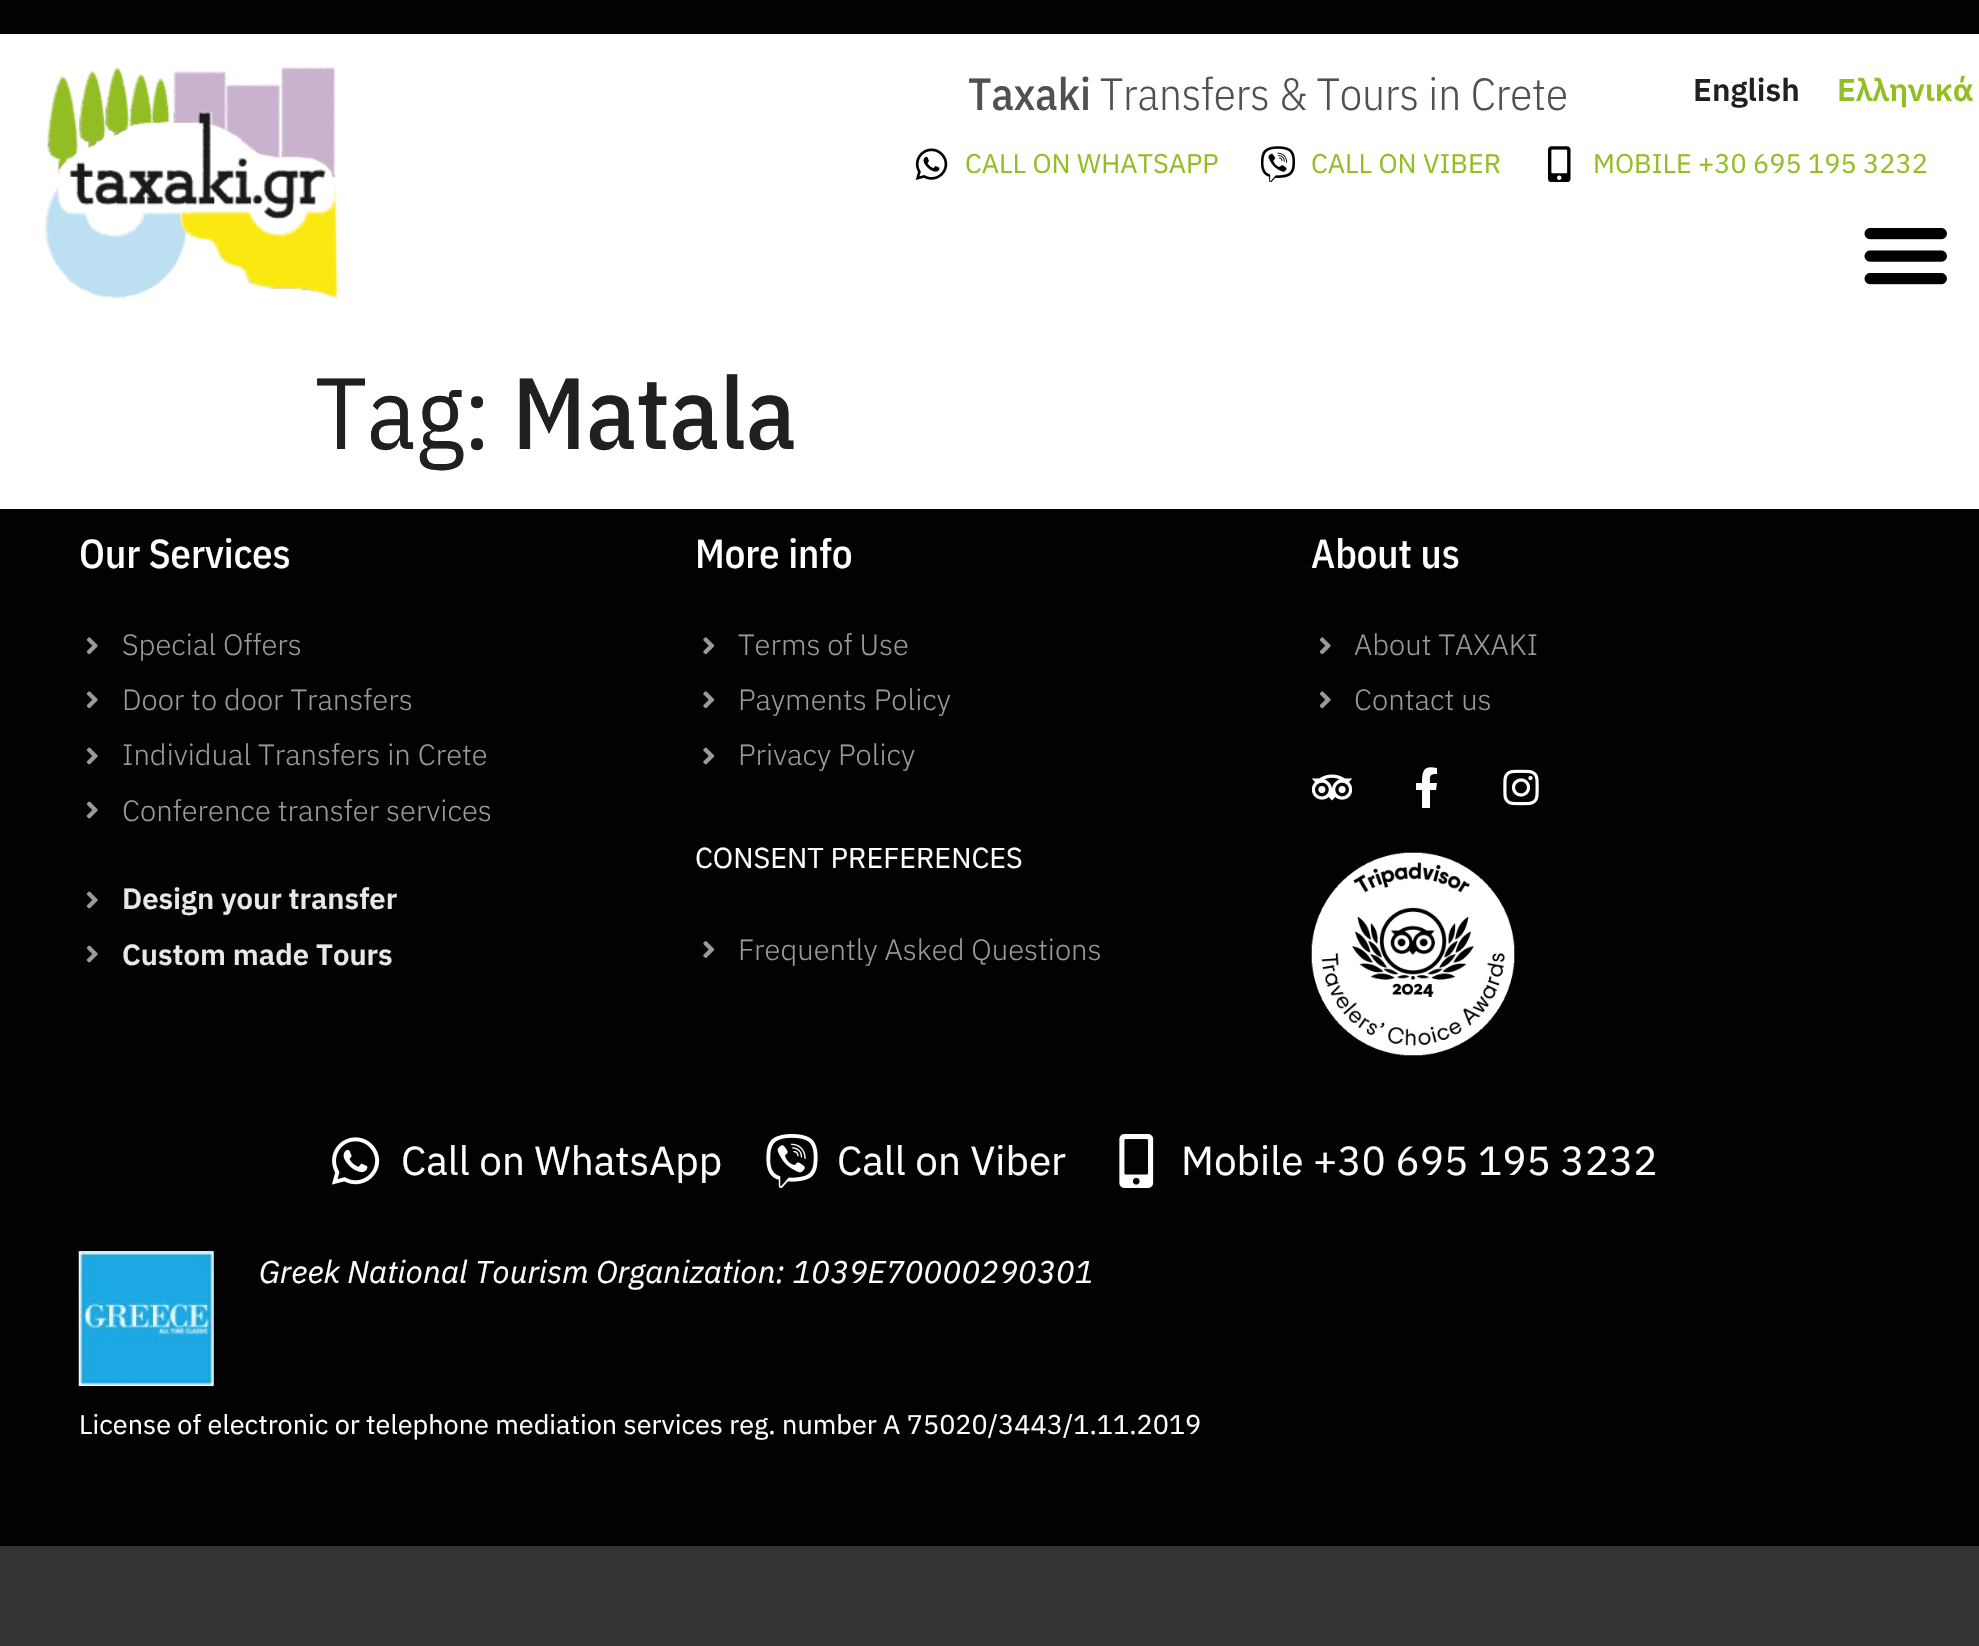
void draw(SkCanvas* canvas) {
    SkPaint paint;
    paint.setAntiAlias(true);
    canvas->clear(0xFFFFFFFF);
    paint.setColor(0xFF020202);
    canvas->drawRect(SkRect::MakeXYWH(0, 0, 1979, 34), paint);
    canvas->drawImageRect(SkImages::DeferredFromEncodedData(SkData::MakeFromFileName("img1.png")), SkRect::MakeXYWH(45, 67, 293, 232), SkSamplingOptions());
    SkFont font1(fontMgr->matchFamilyStyle("IBM Plex Sans Condensed", SkFontStyle(500, SkFontStyle::kNormal_Width, SkFontStyle::kUpright_Slant)), 45);
    font1.setSubpixel(true);
    paint.setColor(0xFF515151);
    canvas->drawString("Taxaki", 968, 110, font1, paint);
    SkFont font2(fontMgr->matchFamilyStyle("IBM Plex Sans Condensed", SkFontStyle(300, SkFontStyle::kNormal_Width, SkFontStyle::kUpright_Slant)), 45);
    font2.setSubpixel(true);
    canvas->drawString("Transfers & Tours in Crete", 1100, 110, font2, paint);
    SkFont font3(fontMgr->matchFamilyStyle("IBM Plex Sans", SkFontStyle(600, SkFontStyle::kNormal_Width, SkFontStyle::kUpright_Slant)), 31.5f);
    font3.setSubpixel(true);
    paint.setColor(0xFF202020);
    canvas->drawString("English", 1693, 101, font3, paint);
    paint.setColor(0xFF93BE23);
    canvas->drawString("Ελληνικά", 1837, 101, font3, paint);
    canvas->drawImageRect(SkImages::DeferredFromEncodedData(SkData::MakeFromFileName("img2.png")), SkRect::MakeXYWH(915, 148, 33, 32), SkSamplingOptions());
    SkFont font4(fontMgr->matchFamilyStyle("IBM Plex Sans", SkFontStyle::Normal()), 27);
    font4.setSubpixel(true);
    canvas->drawString("CALL ON WHATSAPP", 965, 173, font4, paint);
    canvas->drawImageRect(SkImages::DeferredFromEncodedData(SkData::MakeFromFileName("img3.png")), SkRect::MakeXYWH(1260, 146, 36, 36), SkSamplingOptions());
    canvas->drawString("CALL ON VIBER", 1311, 173, font4, paint);
    canvas->drawImageRect(SkImages::DeferredFromEncodedData(SkData::MakeFromFileName("img4.png")), SkRect::MakeXYWH(1548, 146, 23, 36), SkSamplingOptions());
    canvas->drawString("MOBILE +30 695 195 3232", 1593, 173, font4, paint);
    canvas->drawImageRect(SkImages::DeferredFromEncodedData(SkData::MakeFromFileName("img5.png")), SkRect::MakeXYWH(1864, 228, 83, 57), SkSamplingOptions());
    SkFont font5(fontMgr->matchFamilyStyle("IBM Plex Sans Condensed", SkFontStyle::Normal()), 101);
    font5.setSubpixel(true);
    paint.setColor(0xFF202020);
    canvas->drawString("Tag:", 315, 449, font5, paint);
    SkFont font6(fontMgr->matchFamilyStyle("IBM Plex Sans Condensed", SkFontStyle(500, SkFontStyle::kNormal_Width, SkFontStyle::kUpright_Slant)), 101);
    font6.setSubpixel(true);
    canvas->drawString("Matala", 512, 449, font6, paint);
    paint.setColor(0xFF020202);
    canvas->drawRect(SkRect::MakeXYWH(0, 509, 1979, 1037), paint);
    SkFont font7(fontMgr->matchFamilyStyle("IBM Plex Sans Condensed", SkFontStyle(500, SkFontStyle::kNormal_Width, SkFontStyle::kUpright_Slant)), 40.5f);
    font7.setSubpixel(true);
    paint.setColor(0xFFFFFFFF);
    canvas->drawString("Our Services", 79, 568, font7, paint);
    canvas->drawImageRect(SkImages::DeferredFromEncodedData(SkData::MakeFromFileName("img6.png")), SkRect::MakeXYWH(86, 637, 12, 18), SkSamplingOptions());
    SkFont font8(fontMgr->matchFamilyStyle("IBM Plex Sans", SkFontStyle(300, SkFontStyle::kNormal_Width, SkFontStyle::kUpright_Slant)), 29.25f);
    font8.setSubpixel(true);
    paint.setColor(0xFF9A9A9A);
    canvas->drawString("Special Offers", 122, 655, font8, paint);
    canvas->drawImageRect(SkImages::DeferredFromEncodedData(SkData::MakeFromFileName("img6.png")), SkRect::MakeXYWH(86, 691, 12, 18), SkSamplingOptions());
    canvas->drawString("Door to door Transfers", 122, 710, font8, paint);
    canvas->drawImageRect(SkImages::DeferredFromEncodedData(SkData::MakeFromFileName("img7.png")), SkRect::MakeXYWH(86, 747, 12, 18), SkSamplingOptions());
    canvas->drawString("Individual Transfers in Crete", 122, 765, font8, paint);
    canvas->drawImageRect(SkImages::DeferredFromEncodedData(SkData::MakeFromFileName("img7.png")), SkRect::MakeXYWH(86, 801, 12, 18), SkSamplingOptions());
    canvas->drawString("Conference transfer services", 122, 821, font8, paint);
    canvas->drawImageRect(SkImages::DeferredFromEncodedData(SkData::MakeFromFileName("img7.png")), SkRect::MakeXYWH(86, 891, 12, 18), SkSamplingOptions());
    SkFont font9(fontMgr->matchFamilyStyle("IBM Plex Sans", SkFontStyle(600, SkFontStyle::kNormal_Width, SkFontStyle::kUpright_Slant)), 29.25f);
    font9.setSubpixel(true);
    paint.setColor(0xFFE8E8E8);
    canvas->drawString("Design your transfer", 122, 909, font9, paint);
    canvas->drawImageRect(SkImages::DeferredFromEncodedData(SkData::MakeFromFileName("img7.png")), SkRect::MakeXYWH(86, 945, 12, 18), SkSamplingOptions());
    canvas->drawString("Custom made Tours", 122, 965, font9, paint);
    paint.setColor(0xFFFFFFFF);
    canvas->drawString("More info", 695, 568, font7, paint);
    canvas->drawImageRect(SkImages::DeferredFromEncodedData(SkData::MakeFromFileName("img8.png")), SkRect::MakeXYWH(703, 637, 12, 18), SkSamplingOptions());
    paint.setColor(0xFF9A9A9A);
    canvas->drawString("Terms of Use", 738, 655, font8, paint);
    canvas->drawImageRect(SkImages::DeferredFromEncodedData(SkData::MakeFromFileName("img8.png")), SkRect::MakeXYWH(703, 691, 12, 18), SkSamplingOptions());
    canvas->drawString("Payments Policy", 738, 710, font8, paint);
    canvas->drawImageRect(SkImages::DeferredFromEncodedData(SkData::MakeFromFileName("img9.png")), SkRect::MakeXYWH(703, 747, 12, 18), SkSamplingOptions());
    canvas->drawString("Privacy Policy", 738, 765, font8, paint);
    SkFont font10(fontMgr->matchFamilyStyle("IBM Plex Sans", SkFontStyle::Normal()), 28.75f);
    font10.setSubpixel(true);
    paint.setColor(0xFFFFFFFF);
    canvas->drawString("CONSENT PREFERENCES", 695, 868, font10, paint);
    canvas->drawImageRect(SkImages::DeferredFromEncodedData(SkData::MakeFromFileName("img10.png")), SkRect::MakeXYWH(703, 941, 12, 17), SkSamplingOptions());
    paint.setColor(0xFF9A9A9A);
    canvas->drawString("Frequently Asked Questions", 738, 960, font8, paint);
    paint.setColor(0xFFFFFFFF);
    canvas->drawString("About us", 1311, 568, font7, paint);
    canvas->drawImageRect(SkImages::DeferredFromEncodedData(SkData::MakeFromFileName("img6.png")), SkRect::MakeXYWH(1319, 637, 12, 18), SkSamplingOptions());
    paint.setColor(0xFF9A9A9A);
    canvas->drawString("About TAXAKI", 1354, 655, font8, paint);
    canvas->drawImageRect(SkImages::DeferredFromEncodedData(SkData::MakeFromFileName("img6.png")), SkRect::MakeXYWH(1319, 691, 12, 18), SkSamplingOptions());
    canvas->drawString("Contact us", 1354, 710, font8, paint);
    canvas->drawImageRect(SkImages::DeferredFromEncodedData(SkData::MakeFromFileName("img11.png")), SkRect::MakeXYWH(1312, 774, 40, 27), SkSamplingOptions());
    paint.setColor(0xFFFFFFFF);
    canvas->drawPath(SkPathBuilder().moveTo(1436, 790).lineTo(1437, 783).lineTo(1430, 783).cubicTo(1430, 776, 1429, 774, 1437, 774).lineTo(1437, 768).cubicTo(1424, 765, 1422, 770, 1422, 783).lineTo(1416, 783).lineTo(1416, 790).lineTo(1422, 790).lineTo(1422, 808).lineTo(1430, 808).lineTo(1430, 790).close().detach(), paint);
    canvas->drawImageRect(SkImages::DeferredFromEncodedData(SkData::MakeFromFileName("img12.png")), SkRect::MakeXYWH(1503, 769, 36, 37), SkSamplingOptions());
    canvas->drawImageRect(SkImages::DeferredFromEncodedData(SkData::MakeFromFileName("img13.png")), SkRect::MakeXYWH(1311, 852, 204, 204), SkSamplingOptions());
    canvas->drawImageRect(SkImages::DeferredFromEncodedData(SkData::MakeFromFileName("img14.png")), SkRect::MakeXYWH(331, 1137, 49, 48), SkSamplingOptions());
    SkFont font11(fontMgr->matchFamilyStyle("IBM Plex Sans", SkFontStyle::Normal()), 40.5f);
    font11.setSubpixel(true);
    canvas->drawString("Call on WhatsApp", 401, 1175, font11, paint);
    canvas->drawImageRect(SkImages::DeferredFromEncodedData(SkData::MakeFromFileName("img15.png")), SkRect::MakeXYWH(766, 1134, 52, 54), SkSamplingOptions());
    canvas->drawString("Call on Viber", 837, 1175, font11, paint);
    canvas->drawImageRect(SkImages::DeferredFromEncodedData(SkData::MakeFromFileName("img16.png")), SkRect::MakeXYWH(1119, 1134, 35, 54), SkSamplingOptions());
    canvas->drawString("Mobile +30 695 195 3232", 1181, 1175, font11, paint);
    canvas->drawImageRect(SkImages::DeferredFromEncodedData(SkData::MakeFromFileName("img17.png")), SkRect::MakeXYWH(78, 1251, 136, 135), SkSamplingOptions());
    SkFont font12(fontMgr->matchFamilyStyle("IBM Plex Sans", SkFontStyle::Italic()), 31.5f);
    font12.setSubpixel(true);
    canvas->drawString("Greek National Tourism Organization: 1039E70000290301", 259, 1283, font12, paint);
    canvas->drawString("License of electronic or telephone mediation services reg. number A 75020/3443/1.11.2019", 79, 1434, font4, paint);
    paint.setColor(0xFF333333);
    canvas->drawRect(SkRect::MakeXYWH(0, 1546, 1979, 100), paint);
}
